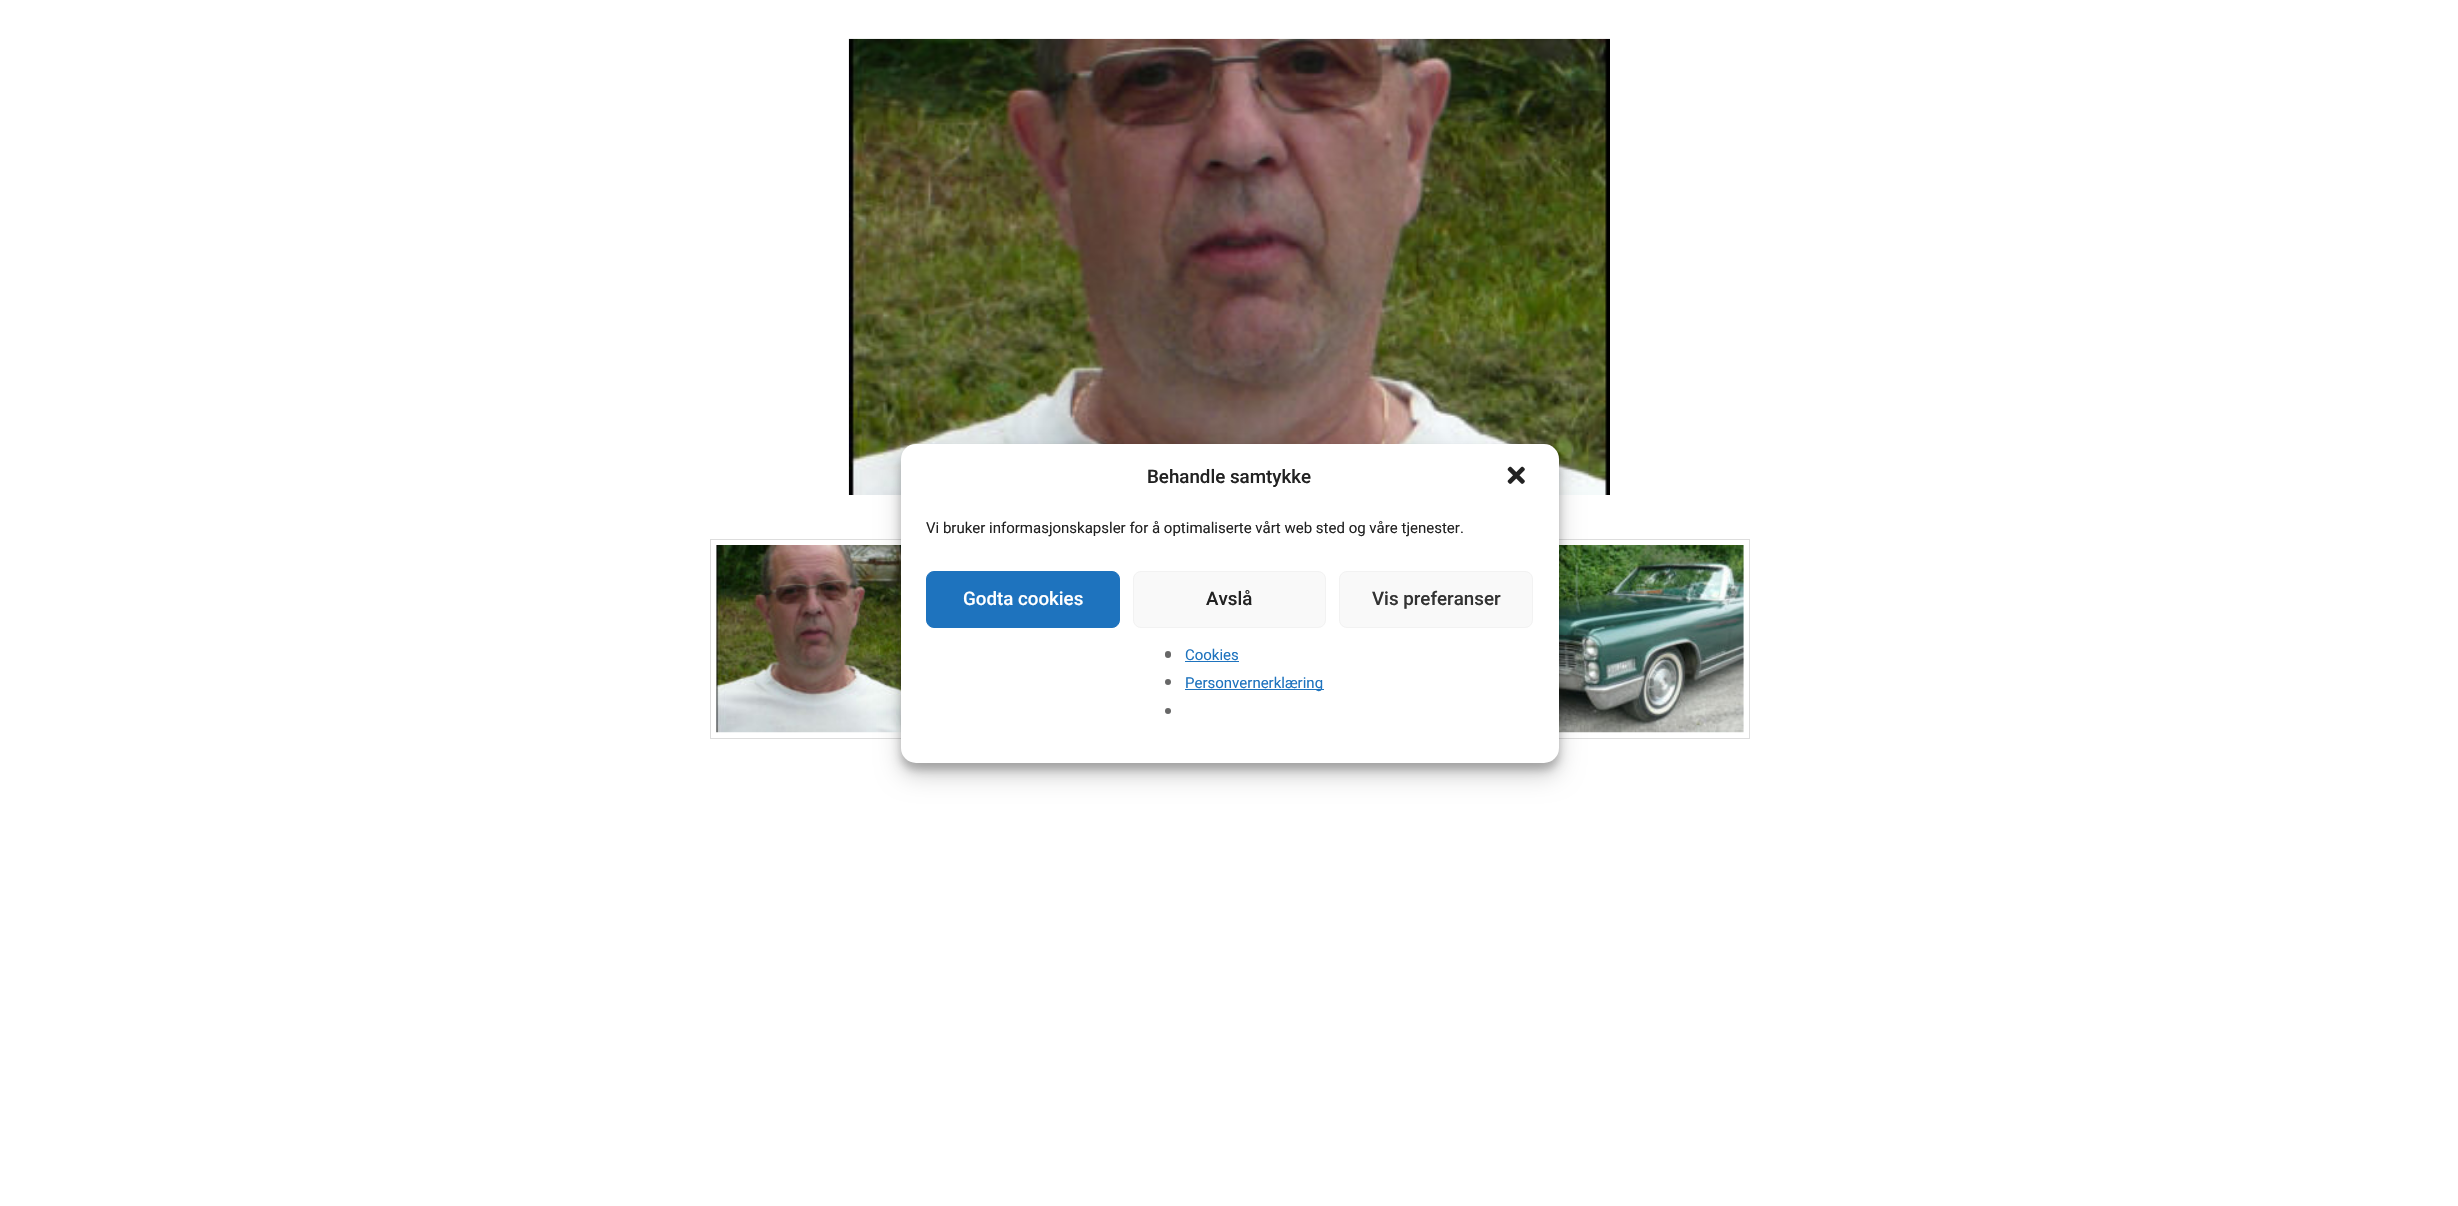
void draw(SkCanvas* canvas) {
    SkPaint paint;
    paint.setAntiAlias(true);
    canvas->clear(0xFFFFFFFF);
    canvas->drawImageRect(SkImages::DeferredFromEncodedData(SkData::MakeFromFileName("img1.png")), SkRect::MakeXYWH(848, 38, 762, 457), SkSamplingOptions());
    paint.setStyle(SkPaint::kStroke_Style);
    paint.setStrokeWidth(1);
    paint.setColor(0xFFDDDDDD);
    canvas->drawRect(SkRect::MakeXYWH(710.5f, 539.5f, 199, 199), paint);
    canvas->drawImageRect(SkImages::DeferredFromEncodedData(SkData::MakeFromFileName("img2.png")), SkRect::MakeXYWH(716, 545, 185, 188), SkSamplingOptions());
    canvas->drawRect(SkRect::MakeXYWH(1550.5f, 539.5f, 199, 199), paint);
    canvas->drawImageRect(SkImages::DeferredFromEncodedData(SkData::MakeFromFileName("img3.png")), SkRect::MakeXYWH(1559, 545, 185, 188), SkSamplingOptions());
    paint.setStyle(SkPaint::kFill_Style);
    paint.setColor(0x3B000000);
    paint.setMaskFilter(SkMaskFilter::MakeBlur(kNormal_SkBlurStyle, 4));
    canvas->drawRoundRect(SkRect::MakeXYWH(901, 451, 658, 319), 15, 15, paint);
    paint.setMaskFilter(nullptr);
    paint.setColor(0x30000000);
    paint.setMaskFilter(SkMaskFilter::MakeBlur(kNormal_SkBlurStyle, 12.5f));
    canvas->drawRoundRect(SkRect::MakeXYWH(901, 456, 658, 319), 15, 15, paint);
    paint.setMaskFilter(nullptr);
    paint.setColor(0xFFFFFFFF);
    canvas->drawRoundRect(SkRect::MakeXYWH(901, 444, 658, 319), 15, 15, paint);
    SkFont font1(fontMgr->matchFamilyStyle("Roboto", SkFontStyle(500, SkFontStyle::kNormal_Width, SkFontStyle::kUpright_Slant)), 18.75f);
    font1.setSubpixel(true);
    paint.setColor(0xFF222222);
    canvas->drawString("Behandle samtykke", 1147, 483, font1, paint);
    canvas->drawImageRect(SkImages::DeferredFromEncodedData(SkData::MakeFromFileName("img4.png")), SkRect::MakeXYWH(1507, 466, 18, 18), SkSamplingOptions());
    SkFont font2(fontMgr->matchFamilyStyle("Roboto", SkFontStyle::Normal()), 15);
    font2.setSubpixel(true);
    canvas->drawString("Vi bruker informasjonskapsler for å optimaliserte vårt web sted og våre tjenester.", 926, 533, font2, paint);
    paint.setColor(0xFF1E73BE);
    canvas->drawRoundRect(SkRect::MakeXYWH(926.5f, 571.5f, 193, 56), 7.5f, 7.5f, paint);
    paint.setStyle(SkPaint::kStroke_Style);
    canvas->drawRoundRect(SkRect::MakeXYWH(926.5f, 571.5f, 193, 56), 7.5f, 7.5f, paint);
    paint.setStyle(SkPaint::kFill_Style);
    paint.setColor(0xFFFFFFFF);
    canvas->drawString("Godta cookies", 963, 605, font1, paint);
    paint.setColor(0xFFF9F9F9);
    canvas->drawRoundRect(SkRect::MakeXYWH(1133.5f, 571.5f, 192, 56), 7.5f, 7.5f, paint);
    paint.setStyle(SkPaint::kStroke_Style);
    paint.setColor(0xFFF2F2F2);
    canvas->drawRoundRect(SkRect::MakeXYWH(1133.5f, 571.5f, 192, 56), 7.5f, 7.5f, paint);
    paint.setStyle(SkPaint::kFill_Style);
    paint.setColor(0xFF222222);
    canvas->drawString("Avslå", 1206, 605, font1, paint);
    paint.setColor(0xFFF9F9F9);
    canvas->drawRoundRect(SkRect::MakeXYWH(1339.5f, 571.5f, 193, 56), 7.5f, 7.5f, paint);
    paint.setStyle(SkPaint::kStroke_Style);
    paint.setColor(0xFFF2F2F2);
    canvas->drawRoundRect(SkRect::MakeXYWH(1339.5f, 571.5f, 193, 56), 7.5f, 7.5f, paint);
    paint.setStyle(SkPaint::kFill_Style);
    paint.setColor(0xFF333333);
    canvas->drawString("Vis preferanser", 1372, 605, font1, paint);
    paint.setColor(0xFF676767);
    canvas->drawRoundRect(SkRect::MakeXYWH(1165, 651, 6, 7), 3, 3, paint);
    paint.setColor(0xFF1E73BE);
    canvas->drawString("Cookies", 1185, 660, font2, paint);
    canvas->drawRect(SkRect::MakeXYWH(1185, 661, 54, 1), paint);
    paint.setColor(0xFF676767);
    canvas->drawCircle(1168, 682, 3, paint);
    paint.setColor(0xFF1E73BE);
    canvas->drawRect(SkRect::MakeXYWH(1185, 689, 139, 1), paint);
    canvas->drawString("Personvernerklæring", 1185, 688, font2, paint);
    paint.setColor(0xFF676767);
    canvas->drawCircle(1168, 711, 3, paint);
}
